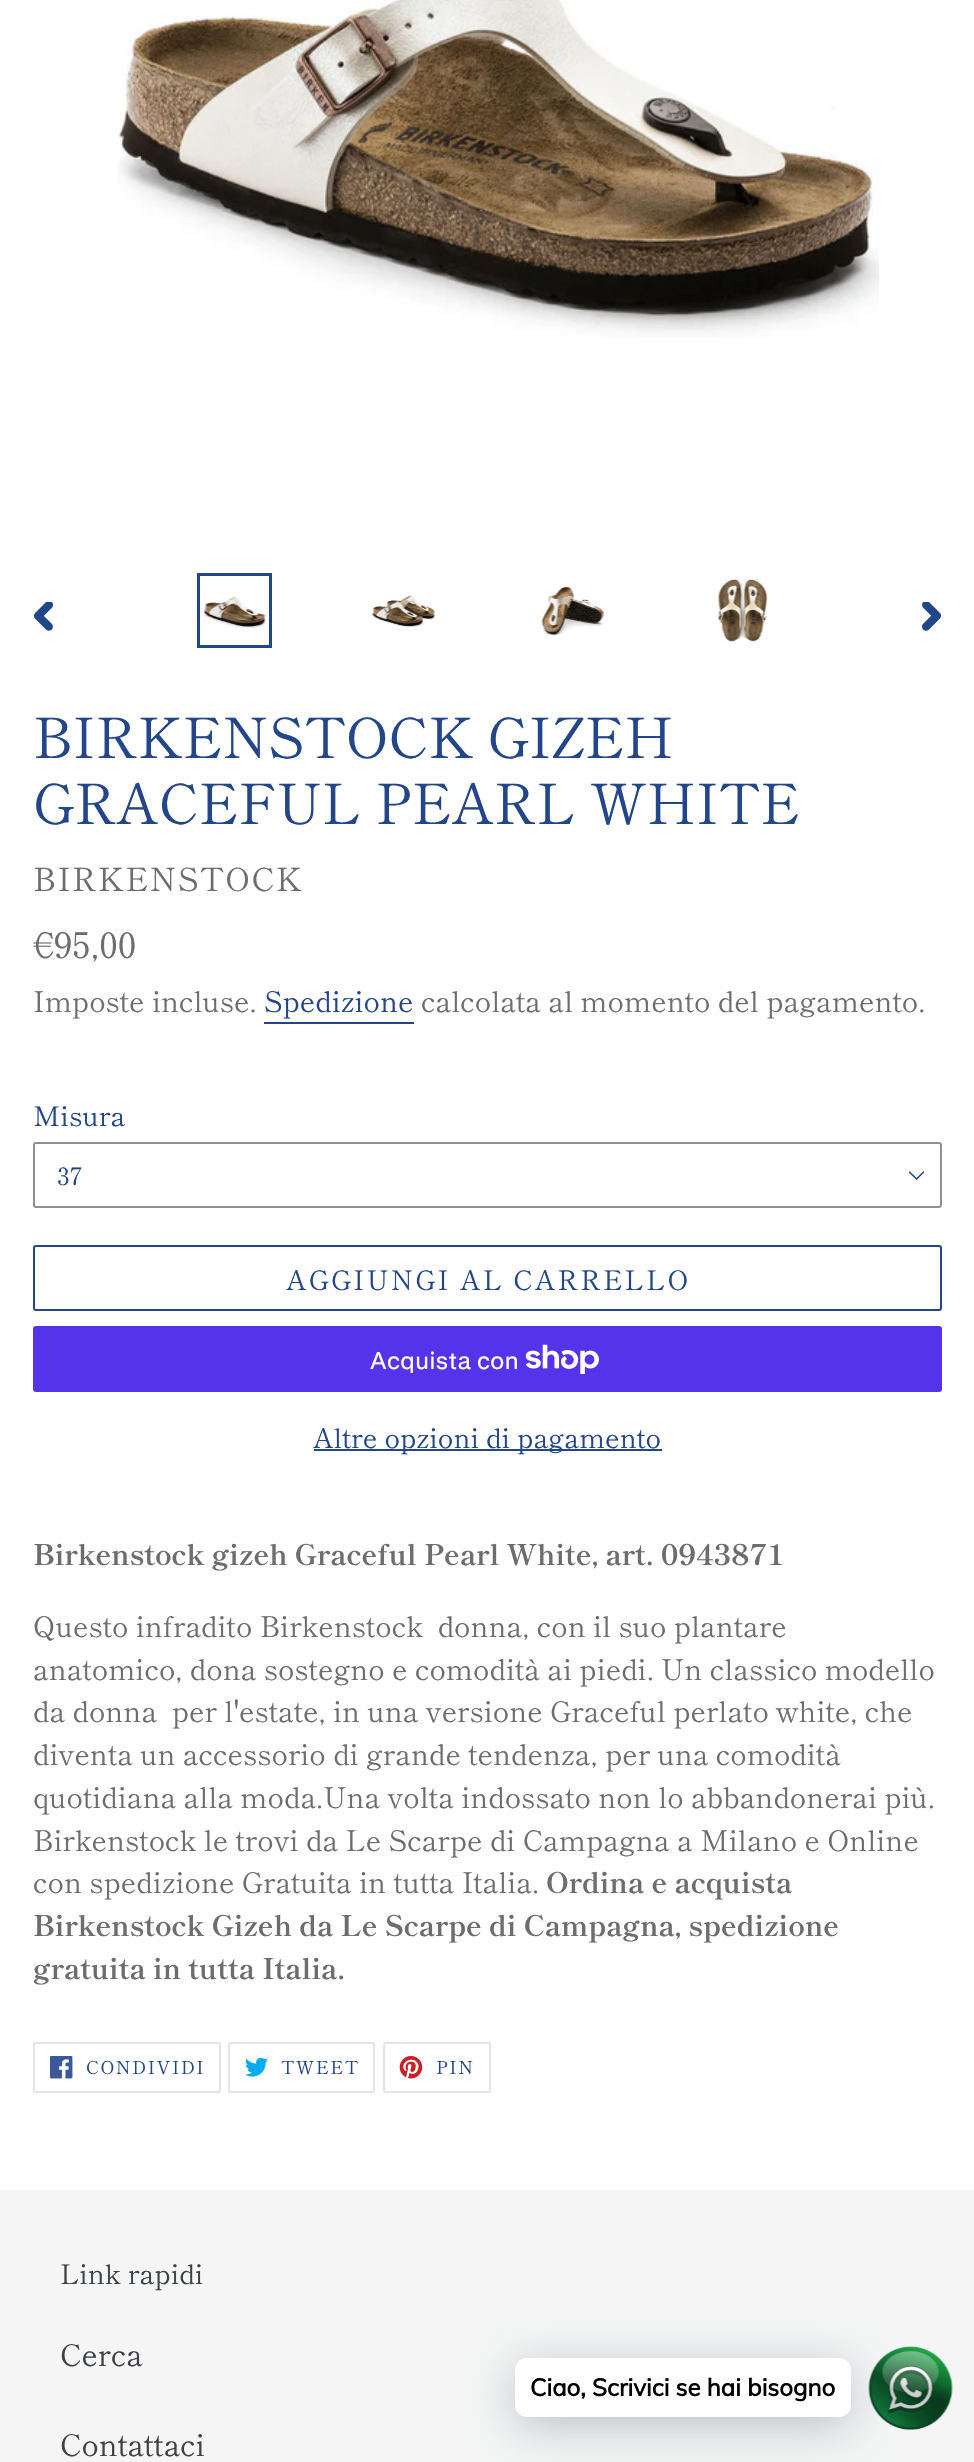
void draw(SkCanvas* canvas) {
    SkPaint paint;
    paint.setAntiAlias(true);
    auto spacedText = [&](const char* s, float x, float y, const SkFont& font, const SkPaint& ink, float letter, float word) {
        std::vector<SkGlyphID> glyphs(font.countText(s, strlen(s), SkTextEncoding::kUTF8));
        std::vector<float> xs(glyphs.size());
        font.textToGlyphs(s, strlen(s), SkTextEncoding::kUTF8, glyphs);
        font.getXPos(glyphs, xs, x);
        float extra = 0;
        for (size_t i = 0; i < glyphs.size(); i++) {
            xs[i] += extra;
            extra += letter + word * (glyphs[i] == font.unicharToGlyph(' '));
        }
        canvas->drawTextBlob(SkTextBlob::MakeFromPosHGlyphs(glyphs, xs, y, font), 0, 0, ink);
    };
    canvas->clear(0xFFFFFFFF);
    canvas->drawImageRect(SkImages::DeferredFromEncodedData(SkData::MakeFromFileName("img1.png")), SkRect::MakeXYWH(117, 0, 762, 337), SkSamplingOptions());
    canvas->drawImageRect(SkImages::DeferredFromEncodedData(SkData::MakeFromFileName("img2.png")), SkRect::MakeXYWH(34, 602, 19, 29), SkSamplingOptions());
    paint.setStyle(SkPaint::kStroke_Style);
    paint.setStrokeWidth(3);
    paint.setColor(0xFF23458A);
    canvas->drawRect(SkRect::MakeXYWH(198.5f, 574.5f, 72, 72), paint);
    canvas->drawImageRect(SkImages::DeferredFromEncodedData(SkData::MakeFromFileName("img3.png")), SkRect::MakeXYWH(204, 596, 62, 32), SkSamplingOptions());
    canvas->drawImageRect(SkImages::DeferredFromEncodedData(SkData::MakeFromFileName("img4.png")), SkRect::MakeXYWH(372, 595, 64, 32), SkSamplingOptions());
    canvas->drawImageRect(SkImages::DeferredFromEncodedData(SkData::MakeFromFileName("img5.png")), SkRect::MakeXYWH(541, 586, 64, 50), SkSamplingOptions());
    canvas->drawImageRect(SkImages::DeferredFromEncodedData(SkData::MakeFromFileName("img6.png")), SkRect::MakeXYWH(717, 579, 51, 63), SkSamplingOptions());
    canvas->drawImageRect(SkImages::DeferredFromEncodedData(SkData::MakeFromFileName("img7.png")), SkRect::MakeXYWH(922, 602, 19, 29), SkSamplingOptions());
    SkFont font1(fontMgr->matchFamilyStyle("Shippori Mincho", SkFontStyle::Normal()), 55.5f);
    font1.setSubpixel(true);
    paint.setStyle(SkPaint::kFill_Style);
    canvas->drawString("BIRKENSTOCK GIZEH", 33, 758, font1, paint);
    canvas->drawString("GRACEFUL PEARL WHITE", 33, 824, font1, paint);
    SkFont font2(fontMgr->matchFamilyStyle("Shippori Mincho", SkFontStyle::Normal()), 32);
    font2.setSubpixel(true);
    paint.setColor(0xFF6D6D6D);
    spacedText("BIRKENSTOCK", 33, 891, font2, paint, 1.5f, 0);
    SkFont font3(fontMgr->matchFamilyStyle("Shippori Mincho", SkFontStyle::Normal()), 35.5f);
    font3.setSubpixel(true);
    canvas->drawString("€95,00", 33, 958, font3, paint);
    SkFont font4(fontMgr->matchFamilyStyle("Shippori Mincho", SkFontStyle::Normal()), 28.5f);
    font4.setSubpixel(true);
    canvas->drawString("Imposte incluse.", 33, 1012, font4, paint);
    paint.setColor(0xFF23458A);
    canvas->drawString("Spedizione", 264, 1012, font4, paint);
    canvas->drawRect(SkRect::MakeXYWH(264, 1022, 150, 2), paint);
    paint.setColor(0xFF6D6D6D);
    canvas->drawString("calcolata al momento del pagamento.", 421, 1012, font4, paint);
    SkFont font5(fontMgr->matchFamilyStyle("Shippori Mincho", SkFontStyle::Normal()), 27);
    font5.setSubpixel(true);
    paint.setColor(0xFF23458A);
    canvas->drawString("Misura", 33, 1126, font5, paint);
    canvas->drawImageRect(SkImages::DeferredFromEncodedData(SkData::MakeFromFileName("img8.png")), SkRect::MakeXYWH(908, 1171, 17, 9), SkSamplingOptions());
    paint.setStyle(SkPaint::kStroke_Style);
    paint.setStrokeWidth(2);
    paint.setColor(0xFF909090);
    canvas->drawRoundRect(SkRect::MakeXYWH(34, 1143, 907, 64), 2, 2, paint);
    SkFont font6(fontMgr->matchFamilyStyle("Shippori Mincho", SkFontStyle::Normal()), 24);
    font6.setSubpixel(true);
    paint.setStyle(SkPaint::kFill_Style);
    paint.setColor(0xFF23458A);
    canvas->drawString("37", 57, 1185, font6, paint);
    paint.setStyle(SkPaint::kStroke_Style);
    canvas->drawRoundRect(SkRect::MakeXYWH(34, 1246, 907, 64), 2, 2, paint);
    paint.setStyle(SkPaint::kFill_Style);
    spacedText("AGGIUNGI AL CARRELLO", 286, 1290, font5, paint, 2.2f, 0);
    paint.setColor(0xFF5433EB);
    canvas->drawRoundRect(SkRect::MakeXYWH(33, 1326, 909, 66), 3, 3, paint);
    SkFont font7(fontMgr->matchFamilyStyle("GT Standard", SkFontStyle::Normal()), 24);
    font7.setSubpixel(true);
    paint.setColor(0xFFFFFFFF);
    canvas->drawString("Acquista con", 370, 1369, font7, paint);
    canvas->drawImageRect(SkImages::DeferredFromEncodedData(SkData::MakeFromFileName("img9.png")), SkRect::MakeXYWH(525, 1344, 74, 30), SkSamplingOptions());
    paint.setColor(0xFF23458A);
    canvas->drawRect(SkRect::MakeXYWH(314, 1449, 348, 2), paint);
    canvas->drawString("Altre opzioni di pagamento", 313, 1448, font5, paint);
    SkFont font8(fontMgr->matchFamilyStyle("Shippori Mincho", SkFontStyle::Bold()), 28.5f);
    font8.setSubpixel(true);
    paint.setColor(0xFF6D6D6D);
    canvas->drawString("Birkenstock gizeh Graceful Pearl White, art. 0943871", 33, 1565, font8, paint);
    canvas->drawString("Questo infradito Birkenstock  donna, con il suo plantare", 33, 1637, font4, paint);
    canvas->drawString("anatomico, dona sostegno e comodità ai piedi. Un classico modello", 33, 1680, font4, paint);
    canvas->drawString("da donna  per l'estate, in una versione Graceful perlato white, che", 33, 1722, font4, paint);
    canvas->drawString("diventa un accessorio di grande tendenza, per una comodità", 33, 1765, font4, paint);
    canvas->drawString("quotidiana alla moda.Una volta indossato non lo abbandonerai più.", 33, 1808, font4, paint);
    canvas->drawString("Birkenstock le trovi da Le Scarpe di Campagna a Milano e Online", 33, 1851, font4, paint);
    canvas->drawString("con spedizione Gratuita in tutta Italia.", 33, 1893, font4, paint);
    canvas->drawString("Ordina e acquista", 546, 1893, font8, paint);
    canvas->drawString("Birkenstock Gizeh da Le Scarpe di Campagna, spedizione", 33, 1936, font8, paint);
    canvas->drawString("gratuita in tutta Italia.", 33, 1979, font8, paint);
    paint.setStyle(SkPaint::kStroke_Style);
    paint.setColor(0xFFE4E4E4);
    canvas->drawRoundRect(SkRect::MakeXYWH(34, 2043, 186, 49), 2, 2, paint);
    canvas->drawImageRect(SkImages::DeferredFromEncodedData(SkData::MakeFromFileName("img10.png")), SkRect::MakeXYWH(50, 2056, 23, 23), SkSamplingOptions());
    SkFont font9(fontMgr->matchFamilyStyle("Shippori Mincho", SkFontStyle::Normal()), 18);
    font9.setSubpixel(true);
    paint.setStyle(SkPaint::kFill_Style);
    paint.setColor(0xFF23458A);
    spacedText("CONDIVIDI", 86, 2074, font9, paint, 1.5f, 0);
    paint.setStyle(SkPaint::kStroke_Style);
    paint.setColor(0xFFE4E4E4);
    canvas->drawRoundRect(SkRect::MakeXYWH(229, 2043, 145, 49), 2, 2, paint);
    canvas->drawImageRect(SkImages::DeferredFromEncodedData(SkData::MakeFromFileName("img11.png")), SkRect::MakeXYWH(245, 2057, 23, 20), SkSamplingOptions());
    paint.setStyle(SkPaint::kFill_Style);
    paint.setColor(0xFF23458A);
    spacedText("TWEET", 281, 2074, font9, paint, 1.5f, 0);
    paint.setStyle(SkPaint::kStroke_Style);
    paint.setColor(0xFFE4E4E4);
    canvas->drawRoundRect(SkRect::MakeXYWH(384, 2043, 106, 49), 2, 2, paint);
    canvas->drawImageRect(SkImages::DeferredFromEncodedData(SkData::MakeFromFileName("img12.png")), SkRect::MakeXYWH(399, 2056, 24, 23), SkSamplingOptions());
    paint.setStyle(SkPaint::kFill_Style);
    paint.setColor(0xFF23458A);
    spacedText("PIN", 436, 2074, font9, paint, 1.5f, 0);
    paint.setColor(0xFFF5F5F5);
    canvas->drawRect(SkRect::MakeXYWH(0, 2190, 974, 272), paint);
    paint.setColor(0xFF3D4246);
    canvas->drawString("Link rapidi", 60, 2284, font5, paint);
    SkFont font10(fontMgr->matchFamilyStyle("Shippori Mincho", SkFontStyle::Normal()), 30);
    font10.setSubpixel(true);
    canvas->drawString("Cerca", 60, 2366, font10, paint);
    canvas->drawString("Contattaci", 60, 2456, font10, paint);
    canvas->drawImageRect(SkImages::DeferredFromEncodedData(SkData::MakeFromFileName("img13.png")), SkRect::MakeXYWH(868, 2346, 85, 84), SkSamplingOptions());
    paint.setColor(0x3D00122E);
    paint.setMaskFilter(SkMaskFilter::MakeBlur(kNormal_SkBlurStyle, 24));
    canvas->drawRoundRect(SkRect::MakeXYWH(515, 2367, 336, 59), 12, 12, paint);
    paint.setMaskFilter(nullptr);
    paint.setColor(0xFFFFFFFF);
    canvas->drawRoundRect(SkRect::MakeXYWH(515, 2358, 336, 59), 12, 12, paint);
    SkFont font11(fontMgr->matchFamilyStyle("Muli", SkFontStyle::Bold()), 24);
    font11.setSubpixel(true);
    paint.setColor(0xFF000000);
    canvas->drawString("Ciao, Scrivici se hai bisogno", 530, 2396, font11, paint);
}
